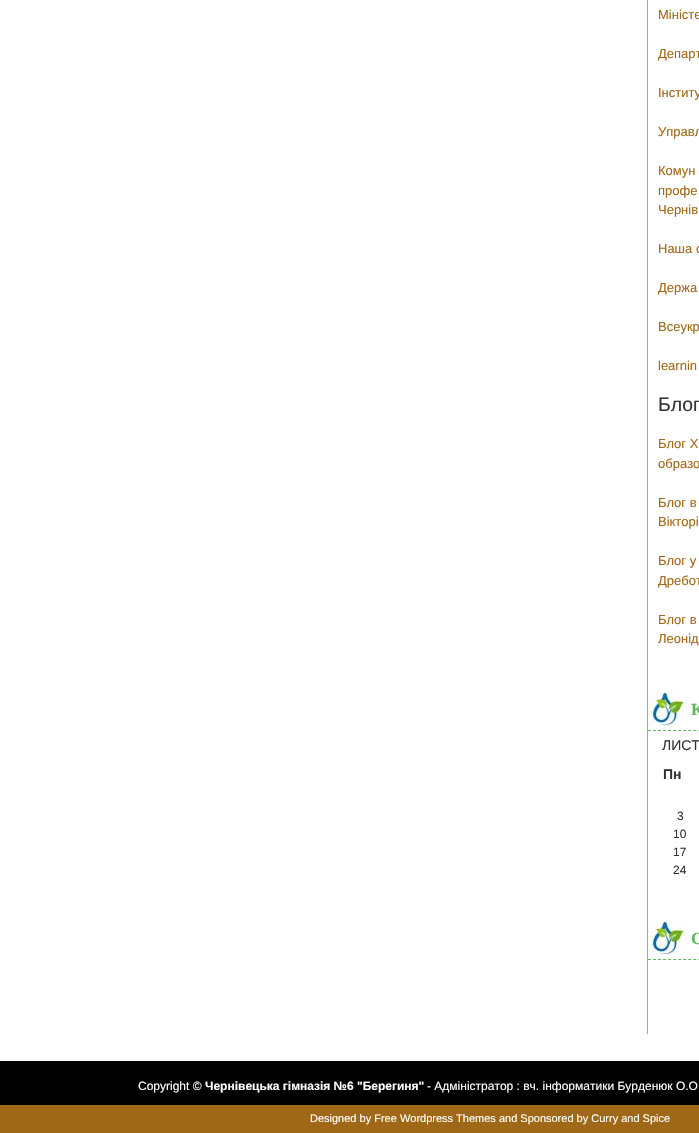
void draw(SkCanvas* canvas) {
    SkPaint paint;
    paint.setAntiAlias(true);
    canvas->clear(0xFFFFFFFF);
    paint.setColor(0xFFE4A307);
    canvas->drawRect(SkRect::MakeXYWH(647, 0, 1, 1034), paint);
    SkFont font1(fontMgr->matchFamilyStyle("Liberation Sans", SkFontStyle::Normal()), 13);
    font1.setSubpixel(true);
    paint.setColor(0xFF9F6816);
    canvas->drawString("Міністе", 658, 19, font1, paint);
    canvas->drawString("Департ", 658, 58, font1, paint);
    canvas->drawString("Інститу", 658, 97, font1, paint);
    canvas->drawString("Управл", 658, 136, font1, paint);
    canvas->drawString("Комун", 658, 175, font1, paint);
    canvas->drawString("профе", 658, 195, font1, paint);
    canvas->drawString("Чернів", 658, 214, font1, paint);
    canvas->drawString("Наша с", 658, 253, font1, paint);
    canvas->drawString("Держа", 658, 292, font1, paint);
    canvas->drawString("Всеукр", 658, 331, font1, paint);
    canvas->drawString("learnin", 658, 370, font1, paint);
    SkFont font2(fontMgr->matchFamilyStyle("Liberation Sans", SkFontStyle::Normal()), 19.5f);
    font2.setSubpixel(true);
    paint.setColor(0xFF333333);
    canvas->drawString("Блог", 658, 411, font2, paint);
    paint.setColor(0xFF9F6816);
    canvas->drawString("Блог Х", 658, 448, font1, paint);
    canvas->drawString("образо", 658, 468, font1, paint);
    canvas->drawString("Блог в", 658, 507, font1, paint);
    canvas->drawString("Вікторі", 658, 526, font1, paint);
    canvas->drawString("Блог у", 658, 565, font1, paint);
    canvas->drawString("Дребот", 658, 585, font1, paint);
    canvas->drawString("Блог в", 658, 624, font1, paint);
    canvas->drawString("Леонід", 658, 643, font1, paint);
    canvas->drawImageRect(SkImages::DeferredFromEncodedData(SkData::MakeFromFileName("img1.png")), SkRect::MakeXYWH(648, 692, 39, 34), SkSamplingOptions());
    paint.setStyle(SkPaint::kStroke_Style);
    paint.setStrokeWidth(1);
    paint.setColor(0xFF61B759);
    paint.setPathEffect(SkDashPathEffect::Make({{3, 2.03f}}, 0));
    canvas->drawPath(SkPathBuilder().moveTo(648, 730.5f).lineTo(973, 730.5f).detach(), paint);
    paint.setPathEffect(nullptr);
    SkFont font3(fontMgr->matchFamilyStyle("Liberation Serif", SkFontStyle::Bold()), 17);
    font3.setSubpixel(true);
    paint.setStyle(SkPaint::kFill_Style);
    canvas->drawString("К", 691, 715, font3, paint);
    SkFont font4(fontMgr->matchFamilyStyle("Liberation Sans", SkFontStyle::Normal()), 14);
    font4.setSubpixel(true);
    paint.setColor(0xFF333333);
    canvas->drawString("ЛИСТ", 662, 750, font4, paint);
    SkFont font5(fontMgr->matchFamilyStyle("Liberation Sans", SkFontStyle::Bold()), 14);
    font5.setSubpixel(true);
    canvas->drawString("Пн", 663, 779, font5, paint);
    SkFont font6(fontMgr->matchFamilyStyle("Liberation Sans", SkFontStyle::Normal()), 12);
    font6.setSubpixel(true);
    canvas->drawString("3", 677, 820, font6, paint);
    canvas->drawString("10", 673, 838, font6, paint);
    canvas->drawString("17", 673, 856, font6, paint);
    canvas->drawString("24", 673, 874, font6, paint);
    canvas->drawImageRect(SkImages::DeferredFromEncodedData(SkData::MakeFromFileName("img1.png")), SkRect::MakeXYWH(648, 921, 39, 34), SkSamplingOptions());
    paint.setStyle(SkPaint::kStroke_Style);
    paint.setColor(0xFF61B759);
    paint.setPathEffect(SkDashPathEffect::Make({{3, 2.03f}}, 0));
    canvas->drawPath(SkPathBuilder().moveTo(648, 959.5f).lineTo(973, 959.5f).detach(), paint);
    paint.setPathEffect(nullptr);
    paint.setStyle(SkPaint::kFill_Style);
    canvas->drawString("С", 691, 944, font3, paint);
    paint.setColor(0xFF000000);
    canvas->drawRect(SkRect::MakeXYWH(0, 1061, 699, 44), paint);
    paint.setColor(0xFFFFFFFF);
    canvas->drawString("Copyright ©", 138, 1090, font6, paint);
    SkFont font7(fontMgr->matchFamilyStyle("Liberation Sans", SkFontStyle::Bold()), 12);
    font7.setSubpixel(true);
    canvas->drawString("Чернівецька гімназія №6 \"Берегиня\"", 205, 1090, font7, paint);
    canvas->drawString("- Адміністратор : вч. інформатики Бурденюк О.О", 427, 1090, font6, paint);
    paint.setColor(0xFF9F6816);
    canvas->drawRect(SkRect::MakeXYWH(0, 1105, 699, 28), paint);
    SkFont font8(fontMgr->matchFamilyStyle("Liberation Sans", SkFontStyle::Normal()), 11);
    font8.setSubpixel(true);
    paint.setColor(0xFFFFFFFF);
    canvas->drawString("Designed by Free Wordpress Themes and Sponsored by Curry and Spice", 310, 1122, font8, paint);
}
